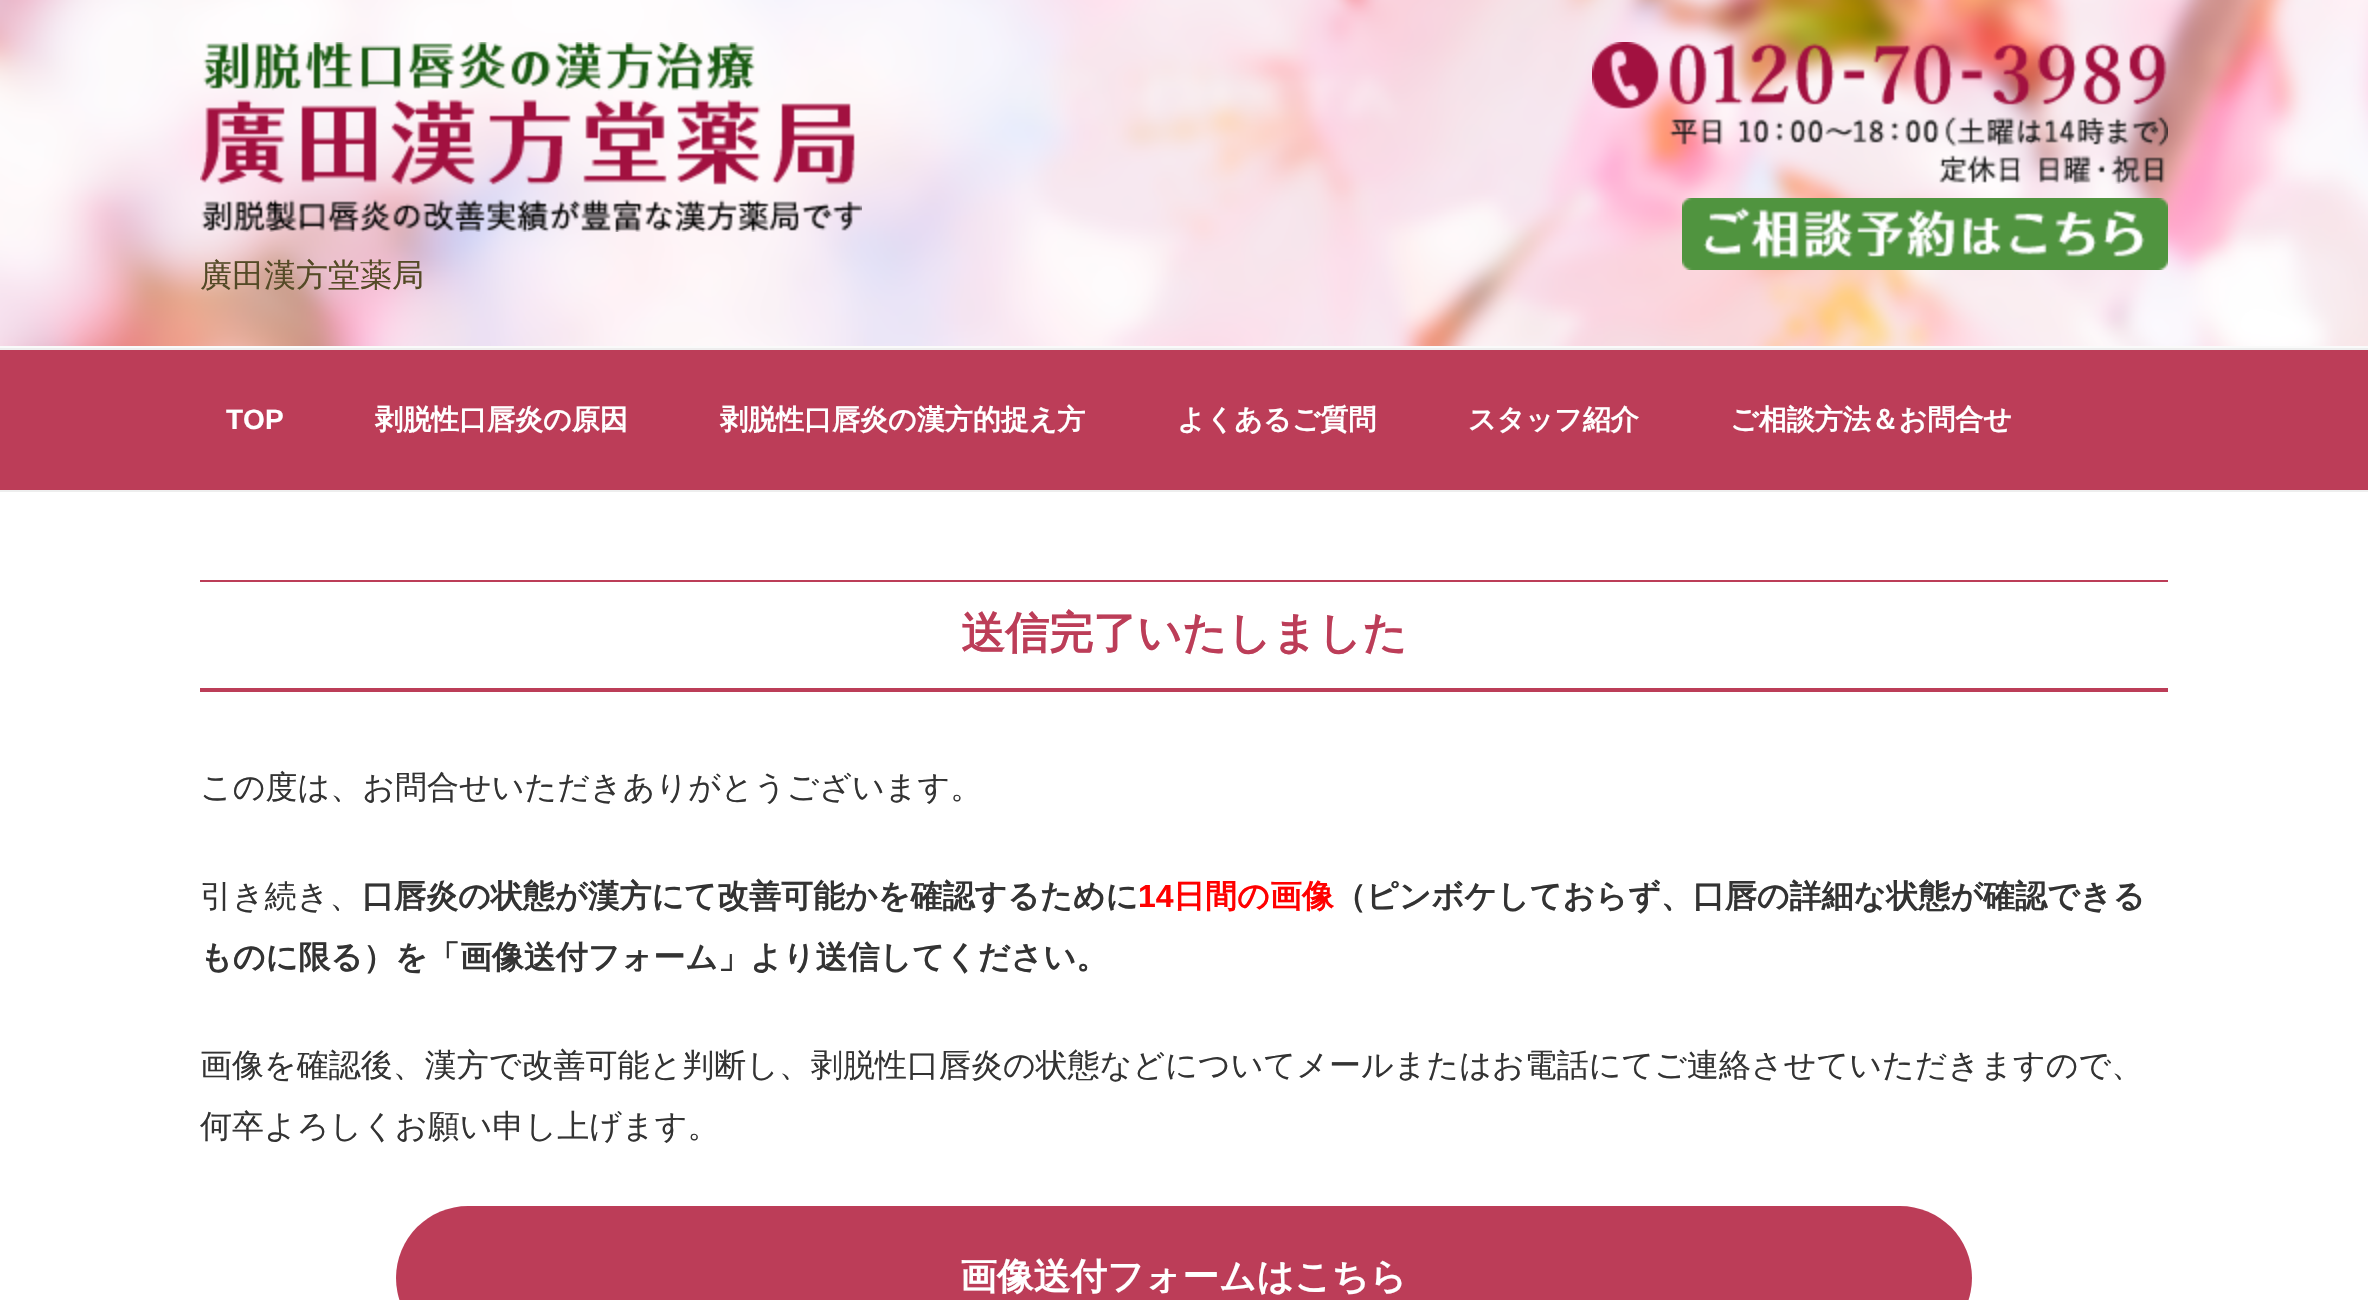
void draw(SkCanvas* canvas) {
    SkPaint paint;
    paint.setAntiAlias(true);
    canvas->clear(0xFFFFFFFF);
    paint.setColor(0xFFFAFAFA);
    canvas->drawRect(SkRect::MakeXYWH(0, 346, 2368, 2), paint);
    canvas->drawImageRect(SkImages::DeferredFromEncodedData(SkData::MakeFromFileName("img1.png")), SkRect::MakeXYWH(0, 0, 2368, 346), SkSamplingOptions());
    canvas->drawImageRect(SkImages::DeferredFromEncodedData(SkData::MakeFromFileName("img2.png")), SkRect::MakeXYWH(1592, 42, 576, 142), SkSamplingOptions());
    canvas->drawImageRect(SkImages::DeferredFromEncodedData(SkData::MakeFromFileName("img3.png")), SkRect::MakeXYWH(1682, 198, 486, 72), SkSamplingOptions());
    canvas->drawImageRect(SkImages::DeferredFromEncodedData(SkData::MakeFromFileName("img4.png")), SkRect::MakeXYWH(200, 42, 662, 190), SkSamplingOptions());
    SkFont font1(fontMgr->matchFamilyStyle("WenQuanYi Zen Hei", SkFontStyle(500, SkFontStyle::kNormal_Width, SkFontStyle::kUpright_Slant)), 32);
    font1.setSubpixel(true);
    paint.setColor(0xFF544A26);
    canvas->drawString("廣田漢方堂薬局", 200, 286, font1, paint);
    paint.setColor(0xFFBC3D58);
    canvas->drawRect(SkRect::MakeXYWH(0, 350, 2368, 140), paint);
    paint.setColor(0xFFEEEEEE);
    canvas->drawRect(SkRect::MakeXYWH(0, 348, 2368, 2), paint);
    canvas->drawRect(SkRect::MakeXYWH(0, 490, 2368, 2), paint);
    SkFont font2(fontMgr->matchFamilyStyle("Liberation Sans", SkFontStyle::Bold()), 28);
    font2.setSubpixel(true);
    paint.setColor(0xFFFFFFFF);
    canvas->drawString("TOP", 226, 429, font2, paint);
    SkFont font3(fontMgr->matchFamilyStyle("WenQuanYi Zen Hei", SkFontStyle::Bold()), 28);
    font3.setSubpixel(true);
    canvas->drawString("剥脱性口唇炎の原因", 375, 429, font3, paint);
    canvas->drawString("剥脱性口唇炎の漢方的捉え方", 720, 429, font3, paint);
    canvas->drawString("よくあるご質問", 1177, 429, font3, paint);
    canvas->drawString("スタッフ紹介", 1468, 429, font3, paint);
    canvas->drawString("ご相談方法＆お問合せ", 1730, 429, font3, paint);
    paint.setColor(0xFFBC3D58);
    canvas->drawRect(SkRect::MakeXYWH(200, 580, 1968, 2), paint);
    canvas->drawRect(SkRect::MakeXYWH(200, 688, 1968, 4), paint);
    SkFont font4(fontMgr->matchFamilyStyle("WenQuanYi Zen Hei", SkFontStyle::Bold()), 44);
    font4.setSubpixel(true);
    canvas->drawString("送信完了いたしました", 961, 648, font4, paint);
    paint.setColor(0xFF333333);
    canvas->drawString("この度は、お問合せいただきありがとうございます。", 200, 798, font1, paint);
    canvas->drawString("引き続き、", 200, 907, font1, paint);
    SkFont font5(fontMgr->matchFamilyStyle("WenQuanYi Zen Hei", SkFontStyle::Bold()), 32);
    font5.setSubpixel(true);
    canvas->drawString("口唇炎の状態が漢方にて改善可能かを確認するために", 362, 907, font5, paint);
    SkFont font6(fontMgr->matchFamilyStyle("Liberation Sans", SkFontStyle::Bold()), 32);
    font6.setSubpixel(true);
    paint.setColor(0xFFFF0000);
    canvas->drawString("14", 1138, 907, font6, paint);
    canvas->drawString("日間の画像", 1173, 907, font5, paint);
    paint.setColor(0xFF333333);
    canvas->drawString("（ピンボケしておらず、口唇の詳細な状態が確認できる", 1334, 907, font5, paint);
    canvas->drawString("ものに限る）を「画像送付フォーム」より送信してください。", 200, 968, font5, paint);
    canvas->drawString("画像を確認後、漢方で改善可能と判断し、剥脱性口唇炎の状態などについてメールまたはお電話にてご連絡させていただきますので、", 200, 1076, font1, paint);
    canvas->drawString("何卒よろしくお願い申し上げます。", 200, 1137, font1, paint);
    paint.setColor(0xFFBC3D58);
    canvas->drawRoundRect(SkRect::MakeXYWH(396, 1206, 1576, 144), 72, 72, paint);
    SkFont font7(fontMgr->matchFamilyStyle("WenQuanYi Zen Hei", SkFontStyle::Bold()), 36.75f);
    font7.setSubpixel(true);
    paint.setColor(0xFFFFFFFF);
    canvas->drawString("画像送付フォームはこちら", 960, 1289, font7, paint);
}
